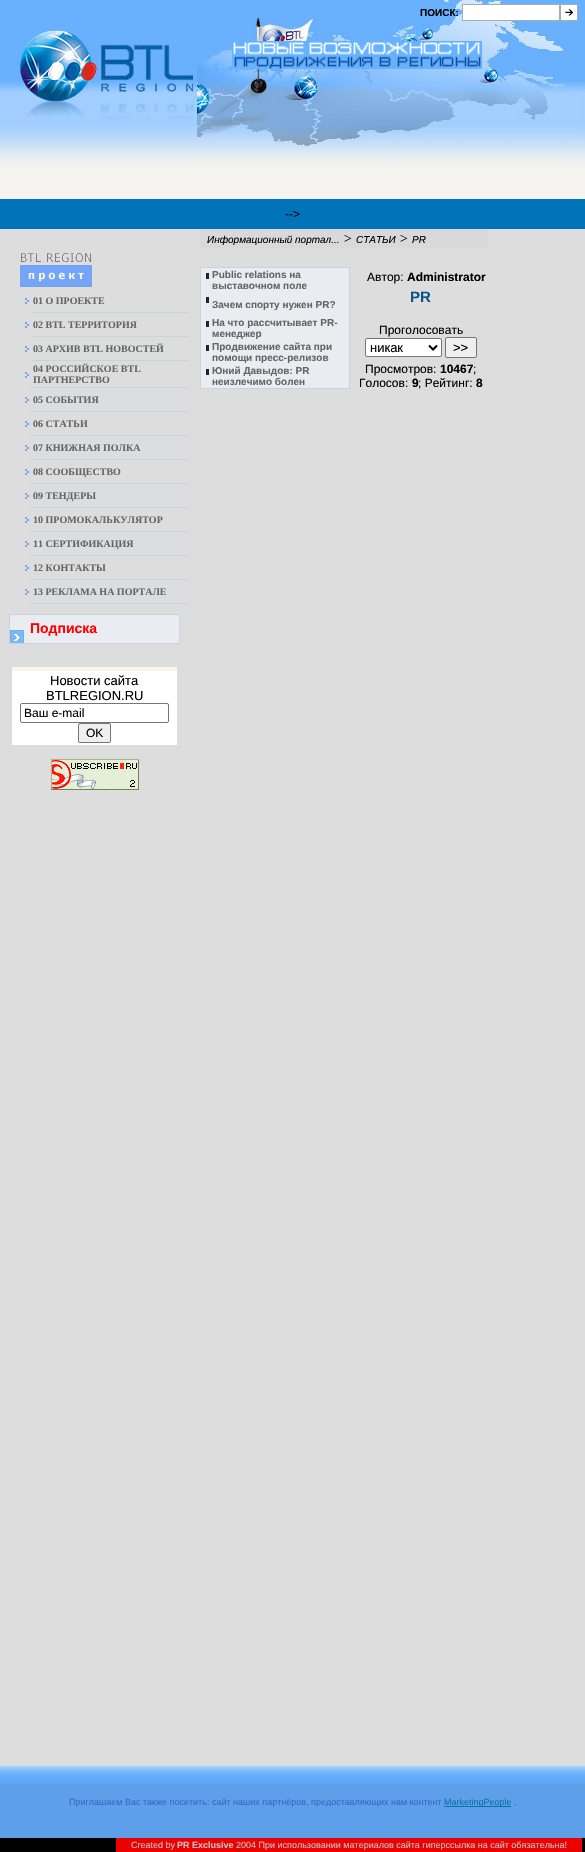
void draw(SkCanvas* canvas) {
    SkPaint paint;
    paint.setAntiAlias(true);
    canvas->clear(0xFFDDDDDD);
    paint.setColor(0xFF69B0FE);
    canvas->drawRect(SkRect::MakeXYWH(0, 0, 585, 82), paint);
    canvas->drawImageRect(SkImages::DeferredFromEncodedData(SkData::MakeFromFileName("img1.png")), SkRect::MakeXYWH(0, 82, 585, 99), SkSamplingOptions());
    canvas->drawImageRect(SkImages::DeferredFromEncodedData(SkData::MakeFromFileName("img2.png")), SkRect::MakeXYWH(197, 0, 385, 152), SkSamplingOptions());
    SkFont font1(fontMgr->matchFamilyStyle("Liberation Sans", SkFontStyle::Bold()), 10);
    font1.setSubpixel(true);
    paint.setColor(0xFF000000);
    canvas->drawString("ПОИСК:", 420, 16, font1, paint);
    paint.setColor(0xFFFFFFFF);
    canvas->drawRect(SkRect::MakeXYWH(462.5f, 4.5f, 97, 16), paint);
    paint.setStyle(SkPaint::kStroke_Style);
    paint.setStrokeWidth(1);
    paint.setColor(0xFFA5ACB2);
    canvas->drawRect(SkRect::MakeXYWH(462.5f, 4.5f, 97, 16), paint);
    canvas->drawImageRect(SkImages::DeferredFromEncodedData(SkData::MakeFromFileName("img3.png")), SkRect::MakeXYWH(560, 4, 18, 17), SkSamplingOptions());
    canvas->drawImageRect(SkImages::DeferredFromEncodedData(SkData::MakeFromFileName("img4.png")), SkRect::MakeXYWH(232, 41, 250, 28), SkSamplingOptions());
    canvas->drawImageRect(SkImages::DeferredFromEncodedData(SkData::MakeFromFileName("img5.png")), SkRect::MakeXYWH(0, 24, 196, 96), SkSamplingOptions());
    paint.setStyle(SkPaint::kFill_Style);
    paint.setColor(0xFFF4F3EF);
    canvas->drawRect(SkRect::MakeXYWH(0, 181, 585, 18), paint);
    paint.setColor(0xFF0073B9);
    canvas->drawRect(SkRect::MakeXYWH(0, 199, 585, 30), paint);
    SkFont font2(fontMgr->matchFamilyStyle("Liberation Sans", SkFontStyle::Normal()), 12);
    font2.setSubpixel(true);
    paint.setColor(0xFF000000);
    canvas->drawString("-->", 285, 218, font2, paint);
    paint.setColor(0xFFD9D9D9);
    canvas->drawRect(SkRect::MakeXYWH(200, 229, 288, 19), paint);
    SkFont font3(fontMgr->matchFamilyStyle("Liberation Sans", SkFontStyle::Italic()), 10);
    font3.setSubpixel(true);
    paint.setColor(0xFF000000);
    canvas->drawString("Информационный портал...", 207, 243, font3, paint);
    SkFont font4(fontMgr->matchFamilyStyle("Liberation Serif", SkFontStyle::Italic()), 14);
    font4.setSubpixel(true);
    canvas->drawString(">", 343, 243, font4, paint);
    canvas->drawString("СТАТЬИ", 356, 243, font3, paint);
    canvas->drawString(">", 399, 243, font4, paint);
    canvas->drawString("PR", 412, 243, font3, paint);
    canvas->drawImageRect(SkImages::DeferredFromEncodedData(SkData::MakeFromFileName("img6.png")), SkRect::MakeXYWH(20, 253, 72, 34), SkSamplingOptions());
    canvas->drawImageRect(SkImages::DeferredFromEncodedData(SkData::MakeFromFileName("img7.png")), SkRect::MakeXYWH(25, 298, 4, 6), SkSamplingOptions());
    paint.setColor(0xFFC8D2E3);
    canvas->drawRect(SkRect::MakeXYWH(31, 312, 158, 1), paint);
    SkFont font5(fontMgr->matchFamilyStyle("Liberation Serif", SkFontStyle::Bold()), 10);
    font5.setSubpixel(true);
    paint.setColor(0xFF656565);
    canvas->drawString("01 О ПРОЕКТЕ", 33, 304, font5, paint);
    canvas->drawImageRect(SkImages::DeferredFromEncodedData(SkData::MakeFromFileName("img7.png")), SkRect::MakeXYWH(25, 322, 4, 6), SkSamplingOptions());
    paint.setColor(0xFFC8D2E3);
    canvas->drawRect(SkRect::MakeXYWH(31, 336, 158, 1), paint);
    paint.setColor(0xFF656565);
    canvas->drawString("02 BTL ТЕРРИТОРИЯ", 33, 328, font5, paint);
    canvas->drawImageRect(SkImages::DeferredFromEncodedData(SkData::MakeFromFileName("img7.png")), SkRect::MakeXYWH(25, 346, 4, 6), SkSamplingOptions());
    paint.setColor(0xFFC8D2E3);
    canvas->drawRect(SkRect::MakeXYWH(31, 360, 158, 1), paint);
    paint.setColor(0xFF656565);
    canvas->drawString("03 АРХИВ BTL НОВОСТЕЙ", 33, 352, font5, paint);
    canvas->drawImageRect(SkImages::DeferredFromEncodedData(SkData::MakeFromFileName("img7.png")), SkRect::MakeXYWH(25, 372, 4, 6), SkSamplingOptions());
    paint.setColor(0xFFC8D2E3);
    canvas->drawRect(SkRect::MakeXYWH(31, 387, 158, 1), paint);
    paint.setColor(0xFF656565);
    canvas->drawString("04 РОССИЙСКОЕ BTL", 33, 372, font5, paint);
    canvas->drawString("ПАРТНЕРСТВО", 33, 383, font5, paint);
    canvas->drawImageRect(SkImages::DeferredFromEncodedData(SkData::MakeFromFileName("img7.png")), SkRect::MakeXYWH(25, 397, 4, 6), SkSamplingOptions());
    paint.setColor(0xFFC8D2E3);
    canvas->drawRect(SkRect::MakeXYWH(31, 411, 158, 1), paint);
    paint.setColor(0xFF656565);
    canvas->drawString("05 СОБЫТИЯ", 33, 403, font5, paint);
    canvas->drawImageRect(SkImages::DeferredFromEncodedData(SkData::MakeFromFileName("img7.png")), SkRect::MakeXYWH(25, 421, 4, 6), SkSamplingOptions());
    paint.setColor(0xFFC8D2E3);
    canvas->drawRect(SkRect::MakeXYWH(31, 435, 158, 1), paint);
    paint.setColor(0xFF656565);
    canvas->drawString("06 СТАТЬИ", 33, 427, font5, paint);
    canvas->drawImageRect(SkImages::DeferredFromEncodedData(SkData::MakeFromFileName("img7.png")), SkRect::MakeXYWH(25, 445, 4, 6), SkSamplingOptions());
    paint.setColor(0xFFC8D2E3);
    canvas->drawRect(SkRect::MakeXYWH(31, 459, 158, 1), paint);
    paint.setColor(0xFF656565);
    canvas->drawString("07 КНИЖНАЯ ПОЛКА", 33, 451, font5, paint);
    canvas->drawImageRect(SkImages::DeferredFromEncodedData(SkData::MakeFromFileName("img7.png")), SkRect::MakeXYWH(25, 469, 4, 6), SkSamplingOptions());
    paint.setColor(0xFFC8D2E3);
    canvas->drawRect(SkRect::MakeXYWH(31, 483, 158, 1), paint);
    paint.setColor(0xFF656565);
    canvas->drawString("08 CООБЩЕСТВО", 33, 475, font5, paint);
    canvas->drawImageRect(SkImages::DeferredFromEncodedData(SkData::MakeFromFileName("img7.png")), SkRect::MakeXYWH(25, 493, 4, 6), SkSamplingOptions());
    paint.setColor(0xFFC8D2E3);
    canvas->drawRect(SkRect::MakeXYWH(31, 507, 158, 1), paint);
    paint.setColor(0xFF656565);
    canvas->drawString("09 ТЕНДЕРЫ", 33, 499, font5, paint);
    canvas->drawImageRect(SkImages::DeferredFromEncodedData(SkData::MakeFromFileName("img7.png")), SkRect::MakeXYWH(25, 517, 4, 6), SkSamplingOptions());
    paint.setColor(0xFFC8D2E3);
    canvas->drawRect(SkRect::MakeXYWH(31, 531, 158, 1), paint);
    paint.setColor(0xFF656565);
    canvas->drawString("10 ПРОМОКАЛЬКУЛЯТОР", 33, 523, font5, paint);
    canvas->drawImageRect(SkImages::DeferredFromEncodedData(SkData::MakeFromFileName("img7.png")), SkRect::MakeXYWH(25, 541, 4, 6), SkSamplingOptions());
    paint.setColor(0xFFC8D2E3);
    canvas->drawRect(SkRect::MakeXYWH(31, 555, 158, 1), paint);
    paint.setColor(0xFF656565);
    canvas->drawString("11 СЕРТИФИКАЦИЯ", 33, 547, font5, paint);
    canvas->drawImageRect(SkImages::DeferredFromEncodedData(SkData::MakeFromFileName("img7.png")), SkRect::MakeXYWH(25, 565, 4, 6), SkSamplingOptions());
    paint.setColor(0xFFC8D2E3);
    canvas->drawRect(SkRect::MakeXYWH(31, 579, 158, 1), paint);
    paint.setColor(0xFF656565);
    canvas->drawString("12 КОНТАКТЫ", 33, 571, font5, paint);
    canvas->drawImageRect(SkImages::DeferredFromEncodedData(SkData::MakeFromFileName("img7.png")), SkRect::MakeXYWH(25, 589, 4, 6), SkSamplingOptions());
    paint.setColor(0xFFC8D2E3);
    canvas->drawRect(SkRect::MakeXYWH(31, 603, 158, 1), paint);
    paint.setColor(0xFF656565);
    canvas->drawString("13 РЕКЛАМА НА ПОРТАЛЕ", 33, 595, font5, paint);
    paint.setColor(0xFFE9EDF2);
    canvas->drawRect(SkRect::MakeXYWH(10, 615, 169, 28), paint);
    canvas->drawImageRect(SkImages::DeferredFromEncodedData(SkData::MakeFromFileName("img8.png")), SkRect::MakeXYWH(10, 630, 14, 13), SkSamplingOptions());
    paint.setStyle(SkPaint::kStroke_Style);
    paint.setColor(0xFFC8D2E3);
    canvas->drawRect(SkRect::MakeXYWH(9.5f, 614.5f, 170, 29), paint);
    SkFont font6(fontMgr->matchFamilyStyle("Liberation Sans", SkFontStyle::Bold()), 14);
    font6.setSubpixel(true);
    paint.setStyle(SkPaint::kFill_Style);
    paint.setColor(0xFFFF0000);
    canvas->drawString("Подписка", 30, 633, font6, paint);
    paint.setColor(0xFFFCF5E9);
    canvas->drawRect(SkRect::MakeXYWH(12, 667, 165, 4), paint);
    paint.setColor(0xFFFFFFFF);
    canvas->drawRect(SkRect::MakeXYWH(12, 671, 165, 74), paint);
    SkFont font7(fontMgr->matchFamilyStyle("Liberation Sans", SkFontStyle::Normal()), 13);
    font7.setSubpixel(true);
    paint.setColor(0xFF000000);
    canvas->drawString("Новости сайта", 50, 685, font7, paint);
    canvas->drawString("BTLREGION.RU", 46, 700, font7, paint);
    paint.setStyle(SkPaint::kStroke_Style);
    paint.setColor(0xFF767676);
    canvas->drawRoundRect(SkRect::MakeXYWH(20.5f, 703.5f, 148, 19), 1.5f, 1.5f, paint);
    paint.setStyle(SkPaint::kFill_Style);
    paint.setColor(0xFF000000);
    canvas->drawString("Ваш e-mail", 24, 717, font2, paint);
    paint.setColor(0xFFEFEFEF);
    canvas->drawRoundRect(SkRect::MakeXYWH(78.5f, 723.5f, 32, 19), 1.5f, 1.5f, paint);
    paint.setStyle(SkPaint::kStroke_Style);
    paint.setColor(0xFF767676);
    canvas->drawRoundRect(SkRect::MakeXYWH(78.5f, 723.5f, 32, 19), 1.5f, 1.5f, paint);
    paint.setStyle(SkPaint::kFill_Style);
    paint.setColor(0xFF000000);
    canvas->drawString("OK", 86, 737, font2, paint);
    canvas->drawImageRect(SkImages::DeferredFromEncodedData(SkData::MakeFromFileName("img9.png")), SkRect::MakeXYWH(51, 759, 88, 31), SkSamplingOptions());
    paint.setColor(0xFFE9EDF2);
    canvas->drawRect(SkRect::MakeXYWH(201, 268, 148, 120), paint);
    paint.setColor(0xFFC8D2E3);
    canvas->drawRect(SkRect::MakeXYWH(200, 267, 150, 1), paint);
    canvas->drawRect(SkRect::MakeXYWH(200, 388, 150, 1), paint);
    canvas->drawRect(SkRect::MakeXYWH(200, 268, 1, 120), paint);
    paint.setColor(0xFF202326);
    canvas->drawRect(SkRect::MakeXYWH(206, 273, 3, 6), paint);
    paint.setColor(0xFFC8D2E3);
    canvas->drawRect(SkRect::MakeXYWH(349, 268, 1, 120), paint);
    paint.setColor(0xFF656565);
    canvas->drawString("Public relations на", 212, 278, font1, paint);
    canvas->drawString("выставочном поле", 212, 289, font1, paint);
    paint.setColor(0xFF202326);
    canvas->drawRect(SkRect::MakeXYWH(206, 297, 3, 6), paint);
    paint.setColor(0xFF656565);
    canvas->drawString("Зачем спорту нужен PR?", 212, 308, font1, paint);
    paint.setColor(0xFF202326);
    canvas->drawRect(SkRect::MakeXYWH(206, 321, 3, 6), paint);
    paint.setColor(0xFF656565);
    canvas->drawString("На что рассчитывает PR-", 212, 326, font1, paint);
    canvas->drawString("менеджер", 212, 337, font1, paint);
    paint.setColor(0xFF202326);
    canvas->drawRect(SkRect::MakeXYWH(206, 345, 3, 6), paint);
    paint.setColor(0xFF656565);
    canvas->drawString("Продвижение сайта при", 212, 350, font1, paint);
    canvas->drawString("помощи пресс-релизов", 212, 361, font1, paint);
    paint.setColor(0xFF202326);
    canvas->drawRect(SkRect::MakeXYWH(206, 369, 3, 6), paint);
    paint.setColor(0xFF656565);
    canvas->drawString("Юний Давыдов: PR", 212, 374, font1, paint);
    canvas->drawString("неизлечимо болен", 212, 385, font1, paint);
    paint.setColor(0xFF000000);
    canvas->drawString("Автор:", 367, 281, font2, paint);
    SkFont font8(fontMgr->matchFamilyStyle("Liberation Sans", SkFontStyle::Bold()), 12);
    font8.setSubpixel(true);
    canvas->drawString("Administrator", 407, 281, font8, paint);
    SkFont font9(fontMgr->matchFamilyStyle("Liberation Sans", SkFontStyle::Bold()), 15);
    font9.setSubpixel(true);
    paint.setColor(0xFF09538F);
    canvas->drawString("PR", 410, 302, font9, paint);
    paint.setColor(0xFF000000);
    canvas->drawString("Проголосовать", 379, 334, font2, paint);
    paint.setColor(0xFFFFFFFF);
    canvas->drawRoundRect(SkRect::MakeXYWH(365.5f, 338.5f, 76, 18), 1.5f, 1.5f, paint);
    paint.setStyle(SkPaint::kStroke_Style);
    paint.setColor(0xFF767676);
    canvas->drawRoundRect(SkRect::MakeXYWH(365.5f, 338.5f, 76, 18), 1.5f, 1.5f, paint);
    paint.setStrokeWidth(2);
    paint.setColor(0xFF000000);
    canvas->drawPath(SkPathBuilder().moveTo(429, 345.5f).lineTo(433, 349.5f).lineTo(437, 345.5f).detach(), paint);
    paint.setStyle(SkPaint::kFill_Style);
    canvas->drawString("никак", 370, 352, font7, paint);
    paint.setColor(0xFFEFEFEF);
    canvas->drawRoundRect(SkRect::MakeXYWH(445.5f, 337.5f, 31, 20), 1.5f, 1.5f, paint);
    paint.setStyle(SkPaint::kStroke_Style);
    paint.setStrokeWidth(1);
    paint.setColor(0xFF767676);
    canvas->drawRoundRect(SkRect::MakeXYWH(445.5f, 337.5f, 31, 20), 1.5f, 1.5f, paint);
    paint.setStyle(SkPaint::kFill_Style);
    paint.setColor(0xFF000000);
    canvas->drawString(">>", 453, 352, font7, paint);
    canvas->drawString("Просмотров:", 365, 373, font2, paint);
    canvas->drawString("10467", 440, 373, font8, paint);
    canvas->drawString(";", 473, 373, font2, paint);
    canvas->drawString("Голосов:", 359, 387, font2, paint);
    canvas->drawString("9", 412, 387, font8, paint);
    canvas->drawString("; Рейтинг:", 418, 387, font2, paint);
    canvas->drawString("8", 476, 387, font8, paint);
    paint.setColor(0xFF5DA0E9);
    canvas->drawRect(SkRect::MakeXYWH(0, 1784, 585, 54), paint);
    canvas->drawImageRect(SkImages::DeferredFromEncodedData(SkData::MakeFromFileName("img10.png")), SkRect::MakeXYWH(0, 1766, 585, 18), SkSamplingOptions());
    SkFont font10(fontMgr->matchFamilyStyle("Liberation Sans", SkFontStyle::Normal()), 9);
    font10.setSubpixel(true);
    paint.setColor(0xFF3366CC);
    canvas->drawString("Приглашаем Вас также посетить: сайт наших партнёров, предоставляющих нам контент", 69, 1805, font10, paint);
    paint.setColor(0xFF0B70A4);
    canvas->drawRect(SkRect::MakeXYWH(444, 1806, 67, 1), paint);
    canvas->drawString("MarketingPeople", 444, 1805, font10, paint);
    paint.setColor(0xFF3366CC);
    canvas->drawString(",", 514, 1805, font10, paint);
    paint.setColor(0xFF000000);
    canvas->drawRect(SkRect::MakeXYWH(0, 1838, 116, 14), paint);
    paint.setColor(0xFFED0000);
    canvas->drawRect(SkRect::MakeXYWH(116, 1838, 466, 14), paint);
    paint.setColor(0xFFC2C2C2);
    canvas->drawString("Created by", 131, 1848, font10, paint);
    SkFont font11(fontMgr->matchFamilyStyle("Liberation Sans", SkFontStyle::Bold()), 9);
    font11.setSubpixel(true);
    canvas->drawString("PR Exclusive", 177, 1848, font11, paint);
    canvas->drawString("2004 При использовании материалов сайта гиперссылка на сайт обязательна!", 236, 1848, font10, paint);
    paint.setColor(0xFF000000);
    canvas->drawRect(SkRect::MakeXYWH(582, 1838, 3, 14), paint);
}
